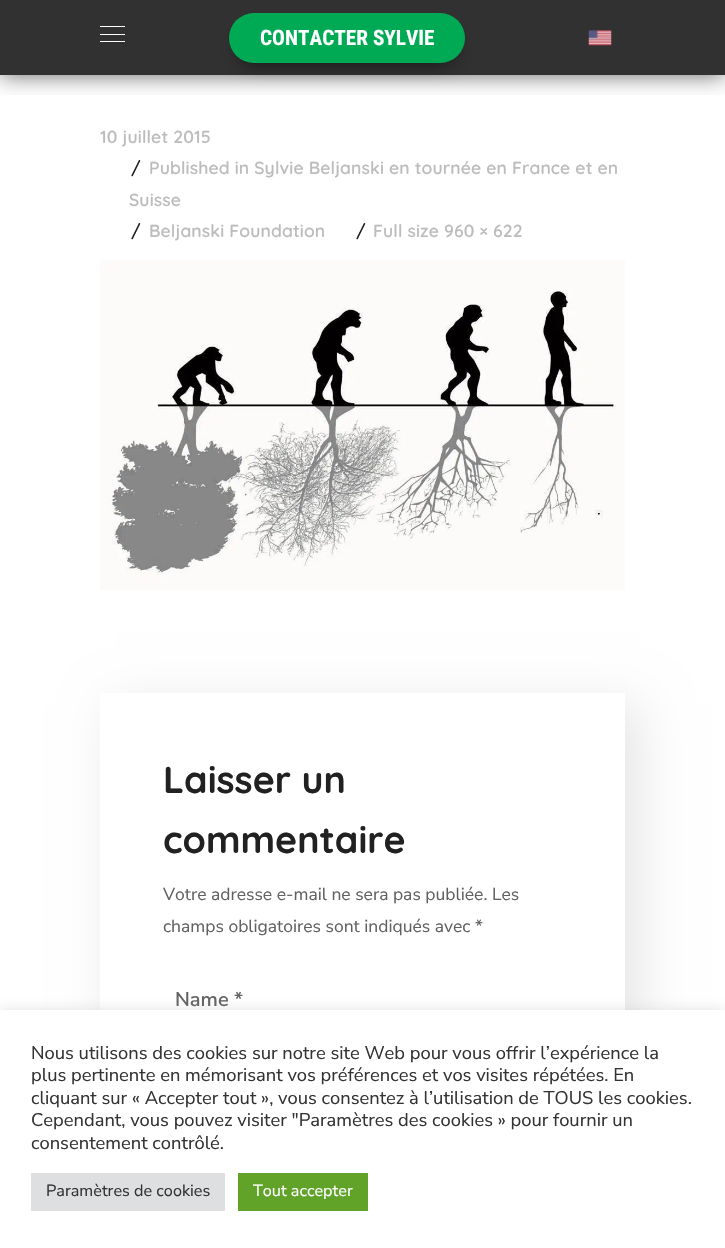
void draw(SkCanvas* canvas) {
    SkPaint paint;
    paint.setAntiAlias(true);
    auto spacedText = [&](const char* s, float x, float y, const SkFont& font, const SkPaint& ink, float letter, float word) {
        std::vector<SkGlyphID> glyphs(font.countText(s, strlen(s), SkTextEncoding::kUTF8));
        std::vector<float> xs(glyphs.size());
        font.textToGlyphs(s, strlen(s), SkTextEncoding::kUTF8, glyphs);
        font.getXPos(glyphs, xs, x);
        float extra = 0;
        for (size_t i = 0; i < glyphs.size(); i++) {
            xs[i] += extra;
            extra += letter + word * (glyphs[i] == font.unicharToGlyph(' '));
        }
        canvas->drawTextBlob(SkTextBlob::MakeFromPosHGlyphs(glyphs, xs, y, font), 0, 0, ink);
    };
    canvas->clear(0xFFFFFFFF);
    paint.setColor(0xFF313131);
    canvas->drawRect(SkRect::MakeXYWH(0, 0, 725, 75), paint);
    canvas->save();
    canvas->clipRect(SkRect::MakeXYWH(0, 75, 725, 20));
    paint.setColor(0x8F000000);
    paint.setMaskFilter(SkMaskFilter::MakeBlur(kNormal_SkBlurStyle, 10.5f));
    canvas->drawRect(SkRect::MakeXYWH(0, 1, 725, 75), paint);
    paint.setMaskFilter(nullptr);
    canvas->restore();
    paint.setColor(0xFFFFFFFF);
    canvas->drawRect(SkRect::MakeXYWH(100, 26, 25, 1), paint);
    canvas->drawRect(SkRect::MakeXYWH(100, 34, 25, 1), paint);
    canvas->drawRect(SkRect::MakeXYWH(100, 41, 25, 1), paint);
    paint.setColor(0x96000000);
    paint.setMaskFilter(SkMaskFilter::MakeBlur(kNormal_SkBlurStyle, 9.5f));
    canvas->drawRoundRect(SkRect::MakeXYWH(239, 33, 216, 30), 15, 15, paint);
    paint.setMaskFilter(nullptr);
    paint.setColor(0xFF00AA55);
    canvas->drawRoundRect(SkRect::MakeXYWH(229, 13, 236, 50), 25, 25, paint);
    SkFont font1(fontMgr->matchFamilyStyle("Roboto Condensed", SkFontStyle::Bold()), 21.25f);
    font1.setSubpixel(true);
    paint.setColor(0xFFFFFFFF);
    canvas->drawString("CONTACTER SYLVIE", 260, 45, font1, paint);
    canvas->drawImageRect(SkImages::DeferredFromEncodedData(SkData::MakeFromFileName("img1.png")), SkRect::MakeXYWH(588, 30, 24, 16), SkSamplingOptions());
    SkFont font2(fontMgr->matchFamilyStyle("Quicksand", SkFontStyle(600, SkFontStyle::kNormal_Width, SkFontStyle::kUpright_Slant)), 17.5f);
    font2.setSubpixel(true);
    paint.setColor(0xFFBCBCBC);
    spacedText("10 juillet 2015", 100, 143, font2, paint, 0.12f, 0);
    paint.setColor(0xFF212121);
    spacedText("/", 131, 174, font2, paint, 0.12f, 0);
    paint.setColor(0xFFBCBCBC);
    spacedText("Published in Sylvie Beljanski en tournée en France et en", 149, 174, font2, paint, 0.12f, 0);
    spacedText("Suisse", 129, 206, font2, paint, 0.12f, 0);
    paint.setColor(0xFF212121);
    spacedText("/", 131, 237, font2, paint, 0.12f, 0);
    paint.setColor(0xFFBCBCBC);
    spacedText("Beljanski Foundation", 149, 237, font2, paint, 0.12f, 0);
    paint.setColor(0xFF212121);
    spacedText("/", 356, 237, font2, paint, 0.12f, 0);
    paint.setColor(0xFFBCBCBC);
    spacedText("Full size 960 × 622", 373, 237, font2, paint, 0.12f, 0);
    canvas->drawImageRect(SkImages::DeferredFromEncodedData(SkData::MakeFromFileName("img2.png")), SkRect::MakeXYWH(100, 260, 525, 330), SkSamplingOptions());
    canvas->save();
    canvas->clipPath(SkPathBuilder(SkPathFillType::kEvenOdd).moveTo(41, 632).lineTo(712, 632).lineTo(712, 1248).lineTo(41, 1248).close().moveTo(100, 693).lineTo(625, 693).lineTo(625, 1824).lineTo(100, 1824).close().detach(), true);
    paint.setColor(0x1A000000);
    paint.setMaskFilter(SkMaskFilter::MakeBlur(kNormal_SkBlurStyle, 24));
    canvas->drawRect(SkRect::MakeXYWH(114, 705, 525, 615), paint);
    paint.setMaskFilter(nullptr);
    canvas->restore();
    SkFont font3(fontMgr->matchFamilyStyle("Quicksand", SkFontStyle::Bold()), 37.5f);
    font3.setSubpixel(true);
    paint.setColor(0xFF212121);
    canvas->drawString("Laisser un", 163, 793, font3, paint);
    canvas->drawString("commentaire", 163, 853, font3, paint);
    SkFont font4(fontMgr->matchFamilyStyle("Nunito Sans", SkFontStyle::Normal()), 17.5f);
    font4.setSubpixel(true);
    paint.setColor(0xFF616161);
    canvas->drawString("Votre adresse e-mail ne sera pas publiée. Les", 163, 900, font4, paint);
    canvas->drawString("champs obligatoires sont indiqués avec *", 163, 932, font4, paint);
    SkFont font5(fontMgr->matchFamilyStyle("Nunito Sans", SkFontStyle(600, SkFontStyle::kNormal_Width, SkFontStyle::kUpright_Slant)), 20);
    font5.setSubpixel(true);
    canvas->drawString("Name *", 175, 1006, font5, paint);
    paint.setColor(0x4DACABAB);
    paint.setMaskFilter(SkMaskFilter::MakeBlur(kNormal_SkBlurStyle, 6));
    canvas->drawRect(SkRect::MakeXYWH(0, 1009, 725, 239), paint);
    paint.setMaskFilter(nullptr);
    paint.setColor(0xFFFFFFFF);
    canvas->drawRect(SkRect::MakeXYWH(0, 1010, 725, 238), paint);
    SkFont font6(fontMgr->matchFamilyStyle("Nunito Sans", SkFontStyle::Normal()), 18.35f);
    font6.setSubpixel(true);
    paint.setColor(0xFF333333);
    canvas->drawString("Nous utilisons des cookies sur notre site Web pour vous offrir l’expérience la", 31, 1059, font6, paint);
    canvas->drawString("plus pertinente en mémorisant vos préférences et vos visites répétées. En", 31, 1081, font6, paint);
    canvas->drawString("cliquant sur « Accepter tout », vous consentez à l’utilisation de TOUS les cookies.", 31, 1104, font6, paint);
    canvas->drawString("Cependant, vous pouvez visiter \"Paramètres des cookies » pour fournir un", 31, 1126, font6, paint);
    canvas->drawString("consentement contrôlé.", 31, 1149, font6, paint);
    paint.setColor(0xFFDEDFE0);
    canvas->drawRect(SkRect::MakeXYWH(31, 1173, 194, 38), paint);
    SkFont font7(fontMgr->matchFamilyStyle("Nunito Sans", SkFontStyle::Normal()), 16.25f);
    font7.setSubpixel(true);
    paint.setColor(0xFF333333);
    canvas->drawString("Paramètres de cookies", 46, 1196, font7, paint);
    paint.setColor(0xFF61A229);
    canvas->drawRect(SkRect::MakeXYWH(238, 1173, 130, 38), paint);
    paint.setColor(0xFFFFFFFF);
    canvas->drawString("Tout accepter", 253, 1196, font7, paint);
}
